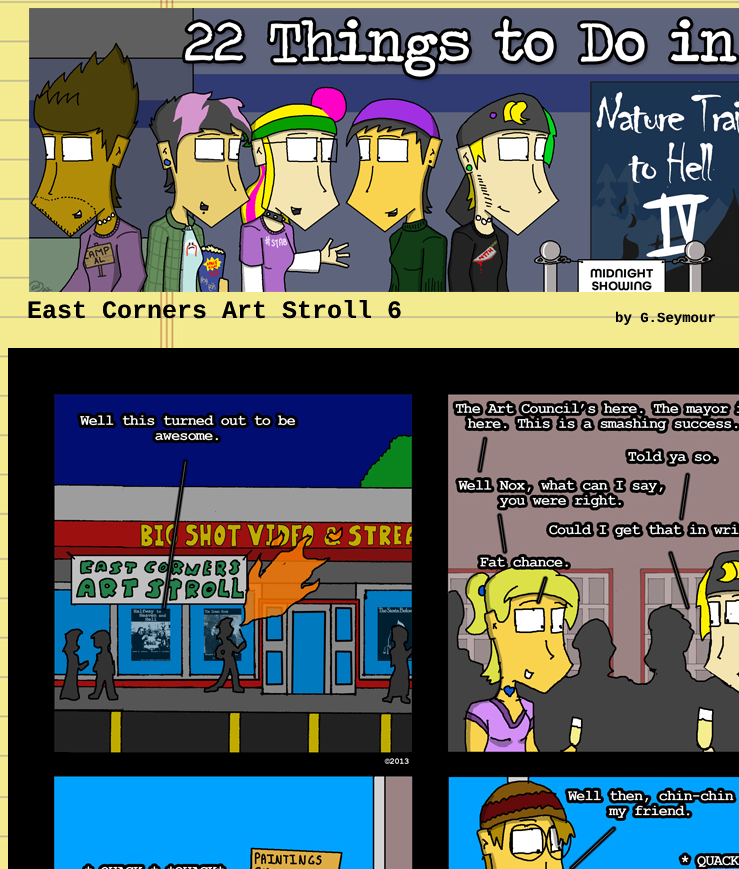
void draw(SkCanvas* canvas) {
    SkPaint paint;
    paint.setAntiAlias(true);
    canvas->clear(0xFFFFFFFF);
    canvas->drawImageRect(SkImages::DeferredFromEncodedData(SkData::MakeFromFileName("img1.png")), SkRect::MakeXYWH(0, 0, 739, 869), SkSamplingOptions());
    canvas->drawImageRect(SkImages::DeferredFromEncodedData(SkData::MakeFromFileName("img2.png")), SkRect::MakeXYWH(29, 8, 710, 284), SkSamplingOptions());
    SkFont font1(fontMgr->matchFamilyStyle("Liberation Mono", SkFontStyle::Bold()), 25);
    font1.setSubpixel(true);
    paint.setColor(0xFF000000);
    canvas->drawString("East Corners Art Stroll 6", 27, 318, font1, paint);
    SkFont font2(fontMgr->matchFamilyStyle("Liberation Mono", SkFontStyle::Bold()), 14);
    font2.setSubpixel(true);
    canvas->drawString("by G.Seymour", 615, 322, font2, paint);
    canvas->drawImageRect(SkImages::DeferredFromEncodedData(SkData::MakeFromFileName("img3.png")), SkRect::MakeXYWH(8, 348, 731, 521), SkSamplingOptions());
}
